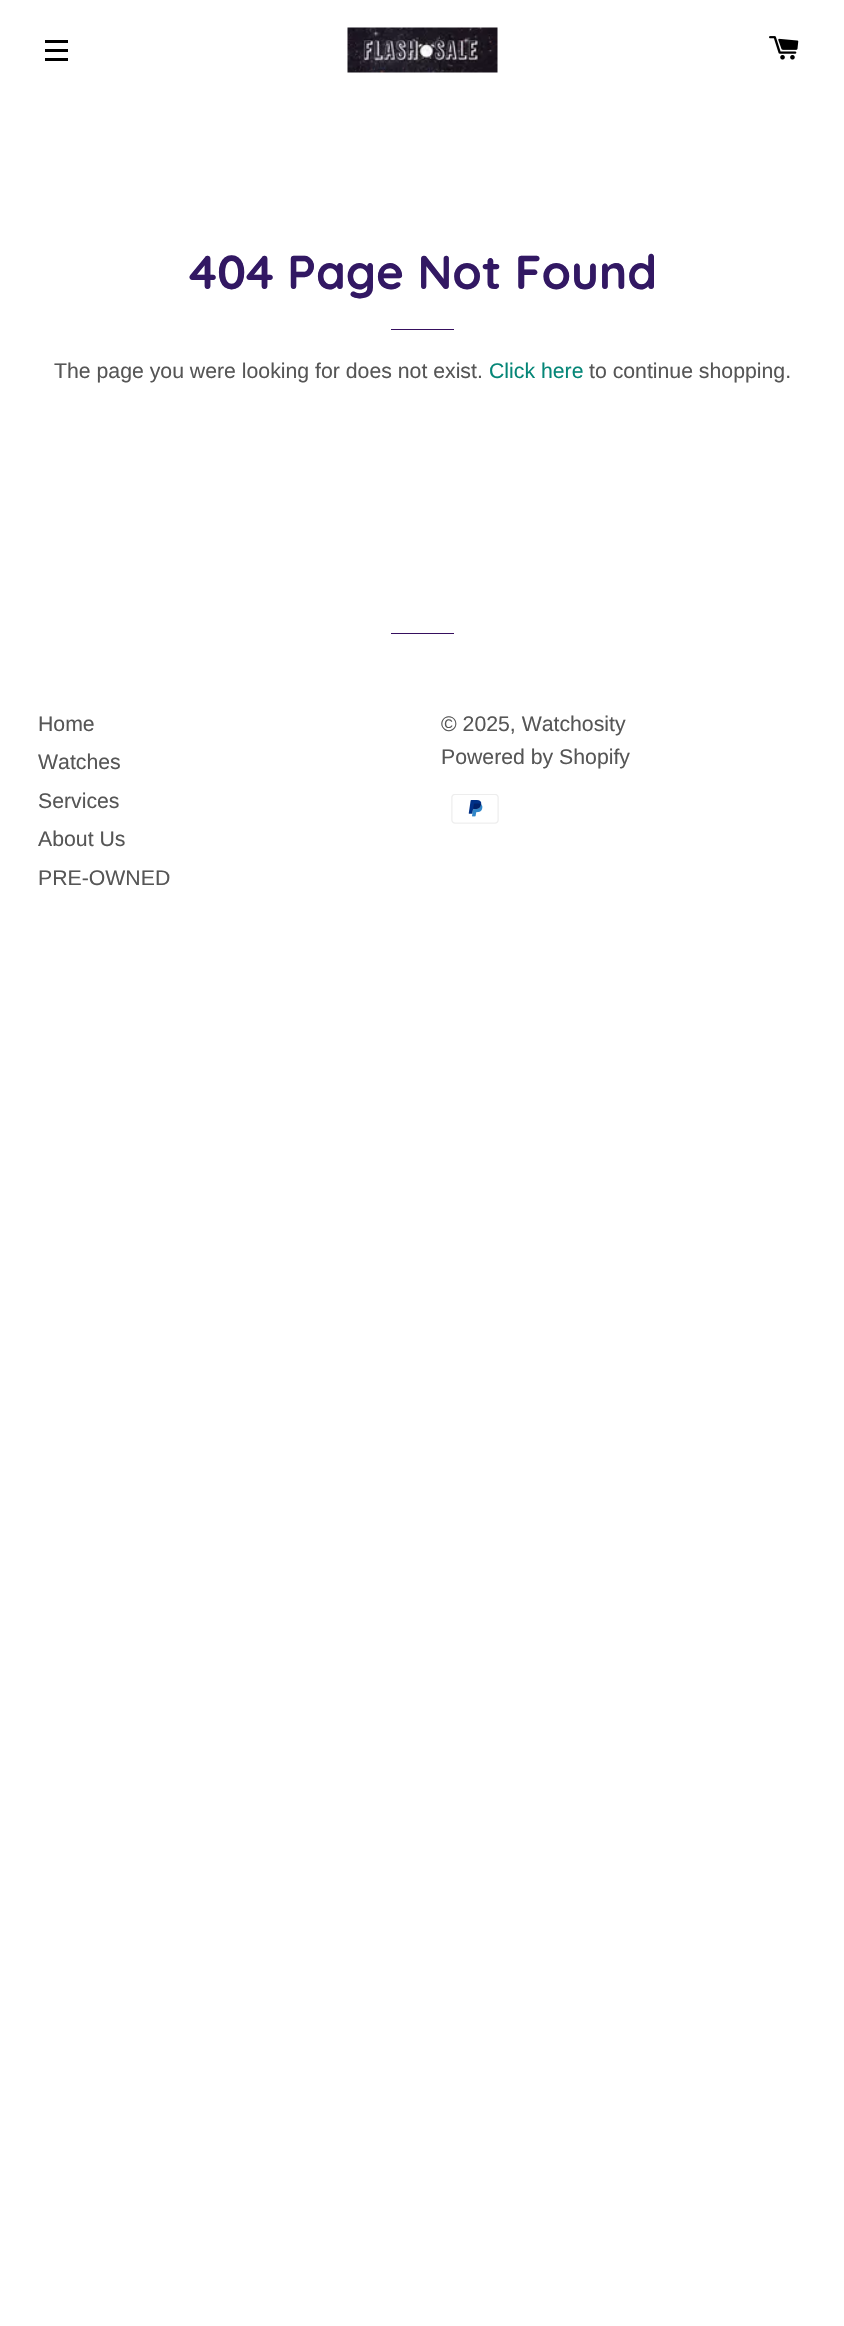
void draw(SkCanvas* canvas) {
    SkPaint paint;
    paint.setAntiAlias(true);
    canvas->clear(0xFFFFFFFF);
    paint.setColor(0xFF000000);
    canvas->drawRect(SkRect::MakeXYWH(45, 40, 23, 3), paint);
    canvas->drawRect(SkRect::MakeXYWH(45, 49, 23, 3), paint);
    canvas->drawRect(SkRect::MakeXYWH(45, 58, 23, 3), paint);
    canvas->drawImageRect(SkImages::DeferredFromEncodedData(SkData::MakeFromFileName("img1.png")), SkRect::MakeXYWH(347, 27, 151, 46), SkSamplingOptions());
    canvas->drawImageRect(SkImages::DeferredFromEncodedData(SkData::MakeFromFileName("img2.png")), SkRect::MakeXYWH(769, 36, 30, 24), SkSamplingOptions());
    SkFont font1(fontMgr->matchFamilyStyle("Quicksand", SkFontStyle::Bold()), 47.5f);
    font1.setSubpixel(true);
    paint.setColor(0xFF321863);
    canvas->drawString("404 Page Not Found", 189, 289, font1, paint);
    paint.setColor(0xFF360F5F);
    canvas->drawRect(SkRect::MakeXYWH(391, 329, 63, 1), paint);
    SkFont font2(fontMgr->matchFamilyStyle("Liberation Sans", SkFontStyle::Normal()), 21.25f);
    font2.setSubpixel(true);
    paint.setColor(0xFF565656);
    canvas->drawString("The page you were looking for does not exist.", 54, 378, font2, paint);
    paint.setColor(0xFF058677);
    canvas->drawString("Click here", 489, 378, font2, paint);
    paint.setColor(0xFF565656);
    canvas->drawString("to continue shopping.", 589, 378, font2, paint);
    paint.setColor(0xFF360F5F);
    canvas->drawRect(SkRect::MakeXYWH(391, 633, 63, 1), paint);
    paint.setColor(0xFF565656);
    canvas->drawString("Home", 38, 731, font2, paint);
    canvas->drawString("Watches", 38, 769, font2, paint);
    canvas->drawString("Services", 38, 808, font2, paint);
    canvas->drawString("About Us", 38, 846, font2, paint);
    canvas->drawString("PRE-OWNED", 38, 885, font2, paint);
    canvas->drawString("© 2025, Watchosity", 441, 731, font2, paint);
    canvas->drawString("Powered by Shopify", 441, 764, font2, paint);
    canvas->drawImageRect(SkImages::DeferredFromEncodedData(SkData::MakeFromFileName("img3.png")), SkRect::MakeXYWH(451, 794, 48, 30), SkSamplingOptions());
}
